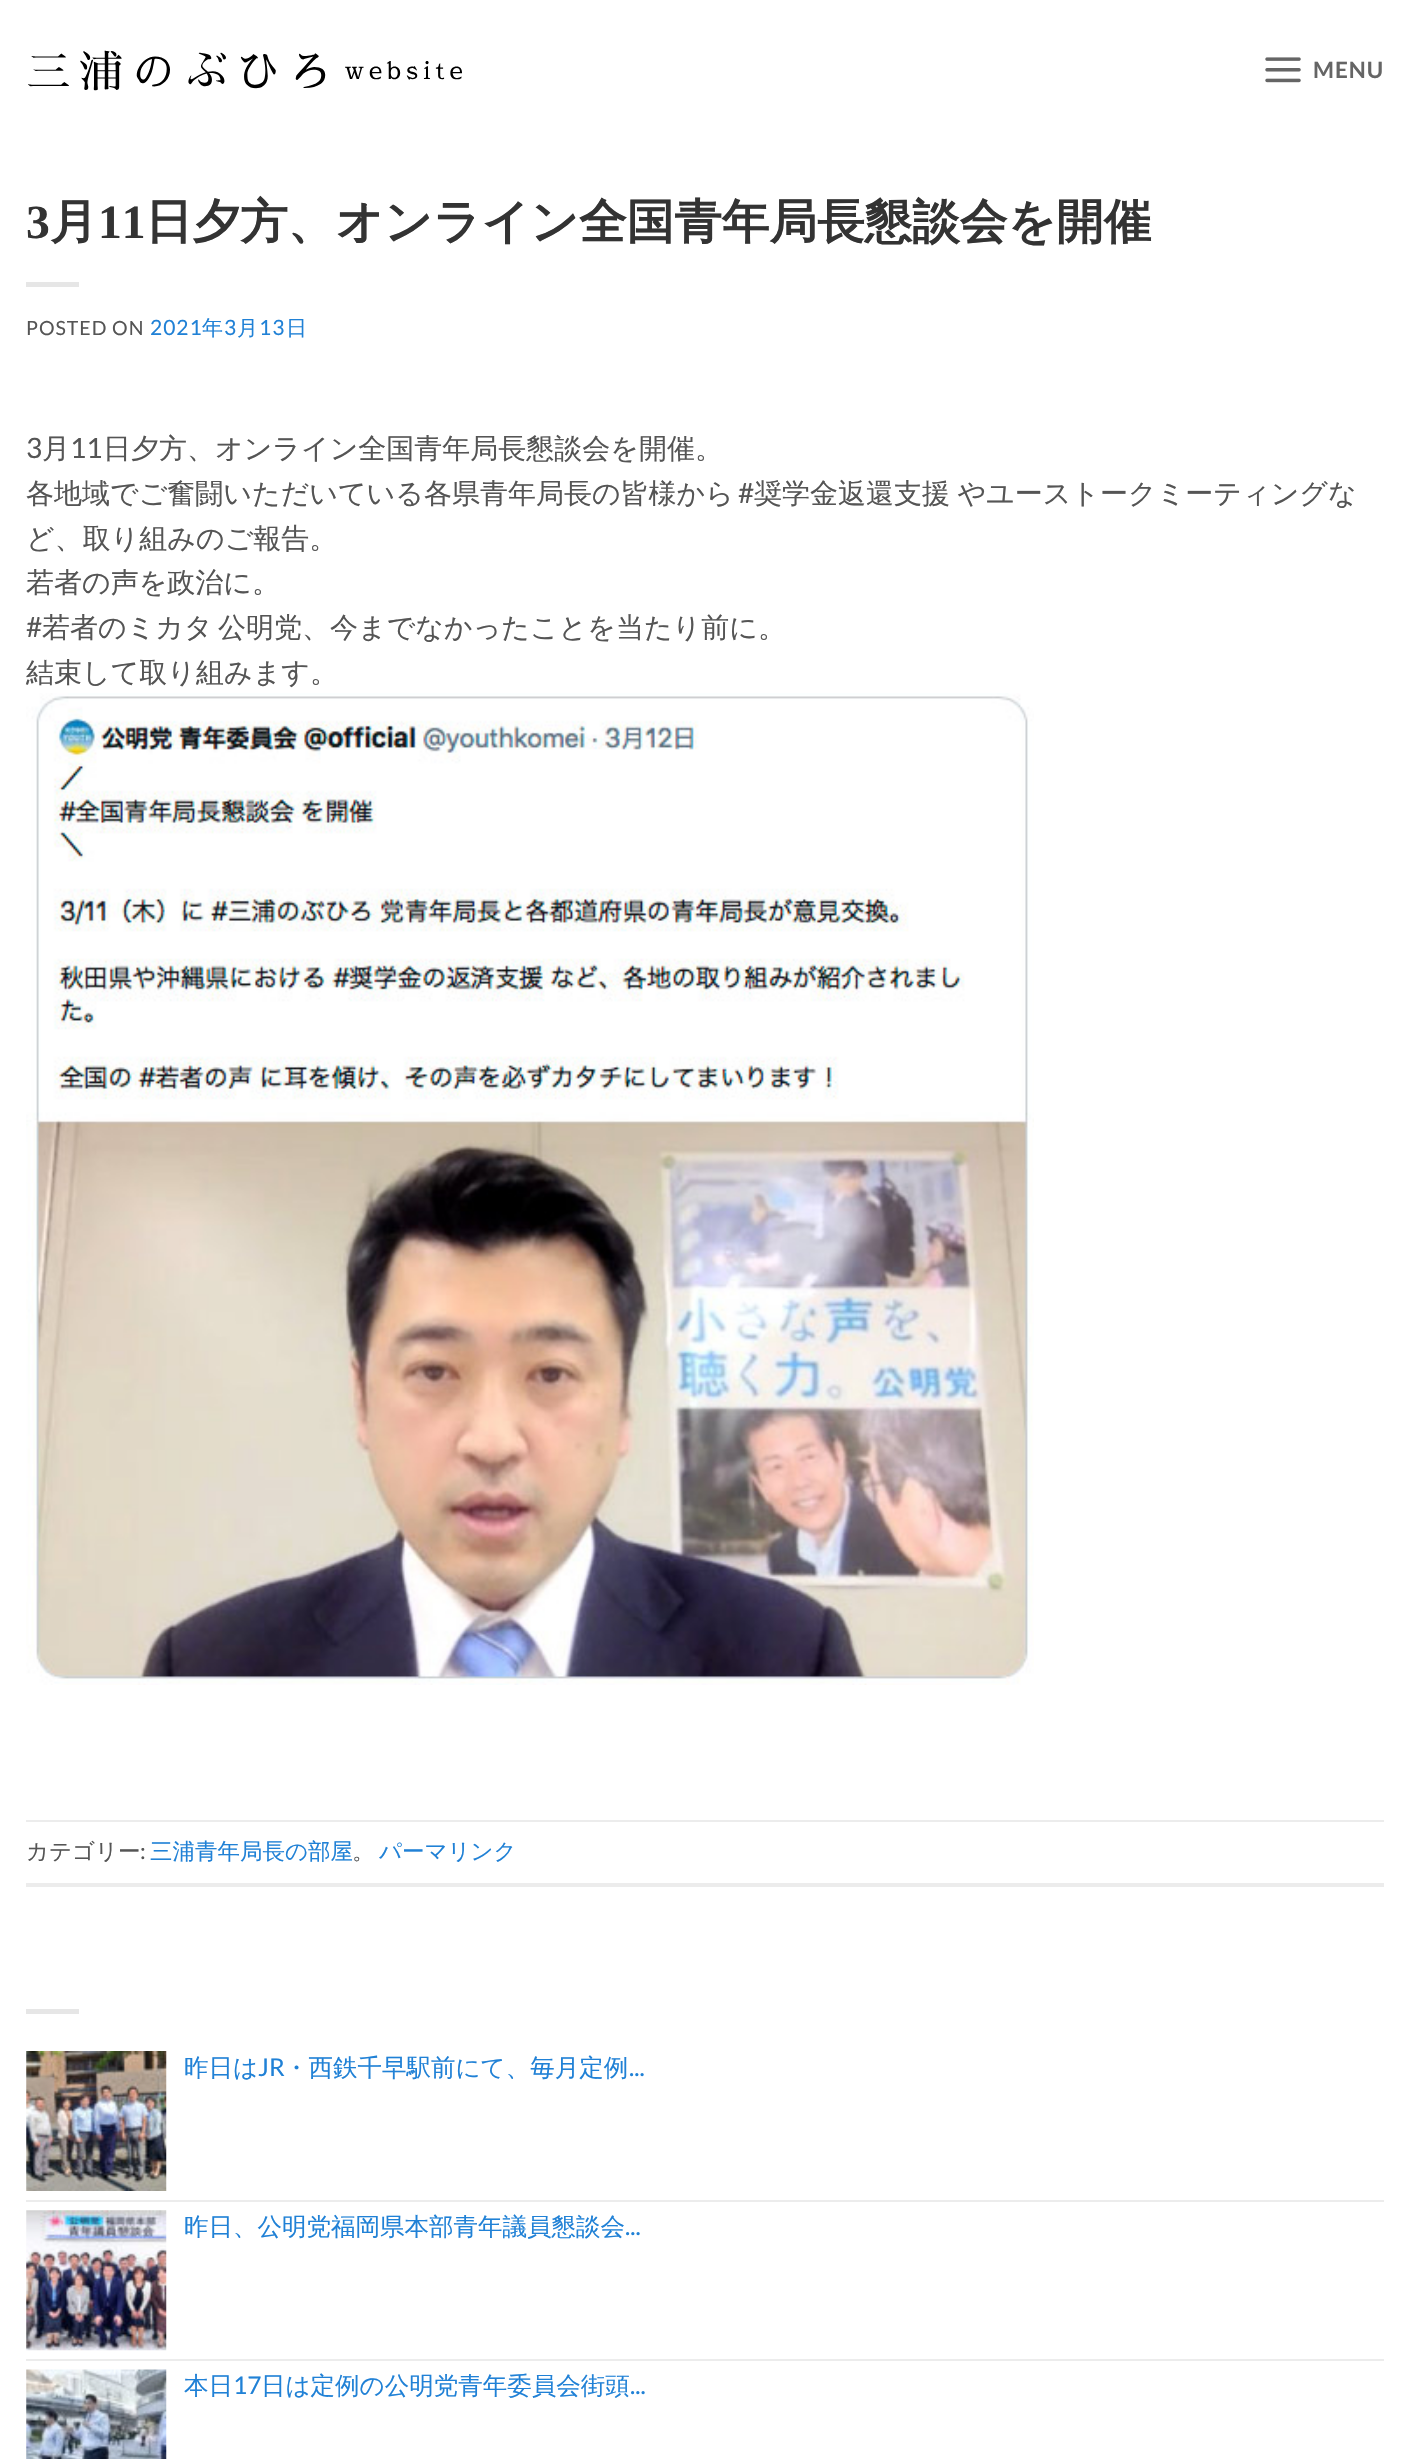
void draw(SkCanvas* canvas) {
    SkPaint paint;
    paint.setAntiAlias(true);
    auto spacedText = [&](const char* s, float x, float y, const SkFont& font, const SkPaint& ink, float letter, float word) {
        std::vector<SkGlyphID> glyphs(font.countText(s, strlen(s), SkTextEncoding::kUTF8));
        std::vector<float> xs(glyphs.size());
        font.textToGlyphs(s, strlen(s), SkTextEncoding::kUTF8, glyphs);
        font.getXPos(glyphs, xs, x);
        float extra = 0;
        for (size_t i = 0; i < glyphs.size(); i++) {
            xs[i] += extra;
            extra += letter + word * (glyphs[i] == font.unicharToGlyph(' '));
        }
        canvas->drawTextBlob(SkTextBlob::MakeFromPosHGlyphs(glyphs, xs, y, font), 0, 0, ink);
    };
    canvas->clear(0xFFFFFFFF);
    canvas->drawImageRect(SkImages::DeferredFromEncodedData(SkData::MakeFromFileName("img1.png")), SkRect::MakeXYWH(28, 50, 434, 41), SkSamplingOptions());
    canvas->drawImageRect(SkImages::DeferredFromEncodedData(SkData::MakeFromFileName("img2.png")), SkRect::MakeXYWH(1265, 57, 36, 26), SkSamplingOptions());
    SkFont font1(fontMgr->matchFamilyStyle("Lato", SkFontStyle::Bold()), 22.5f);
    font1.setSubpixel(true);
    paint.setColor(0xFF656565);
    spacedText("MENU", 1313, 78, font1, paint, 1, 0);
    SkFont font2(fontMgr->matchFamilyStyle("Liberation Serif", SkFontStyle::Bold()), 47.6f);
    font2.setSubpixel(true);
    paint.setColor(0xFF333333);
    canvas->drawString("3", 26, 238, font2, paint);
    SkFont font3(fontMgr->matchFamilyStyle("WenQuanYi Zen Hei", SkFontStyle::Bold()), 47.6f);
    font3.setSubpixel(true);
    canvas->drawString("月", 50, 238, font3, paint);
    canvas->drawString("11", 98, 238, font2, paint);
    canvas->drawString("日夕方、オンライン全国青年局長懇談会を開催", 145, 238, font3, paint);
    paint.setColor(0xFFE6E6E6);
    canvas->drawRect(SkRect::MakeXYWH(26, 282, 53, 5), paint);
    SkFont font4(fontMgr->matchFamilyStyle("Lato", SkFontStyle::Normal()), 19.5f);
    font4.setSubpixel(true);
    paint.setColor(0xFF555555);
    spacedText("POSTED ON", 26, 335, font4, paint, 1, 0);
    SkFont font5(fontMgr->matchFamilyStyle("Lato", SkFontStyle::Normal()), 21);
    font5.setSubpixel(true);
    paint.setColor(0xFF2081D6);
    spacedText("2021", 150, 335, font5, paint, 1, 0);
    SkFont font6(fontMgr->matchFamilyStyle("WenQuanYi Zen Hei", SkFontStyle(500, SkFontStyle::kNormal_Width, SkFontStyle::kUpright_Slant)), 21);
    font6.setSubpixel(true);
    spacedText("年", 202, 335, font6, paint, 1, 0);
    spacedText("3", 224, 335, font5, paint, 1, 0);
    spacedText("月", 237, 335, font6, paint, 1, 0);
    spacedText("13", 259, 335, font5, paint, 1, 0);
    spacedText("日", 286, 335, font6, paint, 1, 0);
    SkFont font7(fontMgr->matchFamilyStyle("Lato", SkFontStyle::Normal()), 28);
    font7.setSubpixel(true);
    paint.setColor(0xFF555555);
    canvas->drawString("3", 26, 458, font7, paint);
    SkFont font8(fontMgr->matchFamilyStyle("WenQuanYi Zen Hei", SkFontStyle(500, SkFontStyle::kNormal_Width, SkFontStyle::kUpright_Slant)), 28);
    font8.setSubpixel(true);
    canvas->drawString("月", 42, 458, font8, paint);
    canvas->drawString("11", 70, 458, font7, paint);
    canvas->drawString("日夕方、オンライン全国青年局長懇談会を開催。", 103, 458, font8, paint);
    canvas->drawString("各地域でご奮闘いただいている各県青年局長の皆様から", 26, 503, font8, paint);
    canvas->drawString("#", 738, 503, font7, paint);
    spacedText("奨学金返還支援 やユーストークミーティングな", 754, 503, font8, paint, 0, -1);
    canvas->drawString("ど、取り組みのご報告。", 26, 548, font8, paint);
    canvas->drawString("若者の声を政治に。", 26, 592, font8, paint);
    canvas->drawString("#", 26, 637, font7, paint);
    spacedText("若者のミカタ 公明党、今までなかったことを当たり前に。", 42, 637, font8, paint, 0, -3);
    canvas->drawString("結束して取り組みます。", 26, 682, font8, paint);
    canvas->drawImageRect(SkImages::DeferredFromEncodedData(SkData::MakeFromFileName("img3.png")), SkRect::MakeXYWH(26, 693, 1008, 992), SkSamplingOptions());
    paint.setColor(0xFFECECEC);
    canvas->drawRect(SkRect::MakeXYWH(26, 1820, 1358, 2), paint);
    canvas->drawRect(SkRect::MakeXYWH(26, 1883, 1358, 4), paint);
    SkFont font9(fontMgr->matchFamilyStyle("WenQuanYi Zen Hei", SkFontStyle(500, SkFontStyle::kNormal_Width, SkFontStyle::kUpright_Slant)), 22.5f);
    font9.setSubpixel(true);
    paint.setColor(0xFF555555);
    canvas->drawString("カテゴリー", 26, 1859, font9, paint);
    SkFont font10(fontMgr->matchFamilyStyle("Lato", SkFontStyle::Normal()), 22.5f);
    font10.setSubpixel(true);
    canvas->drawString(":", 140, 1859, font10, paint);
    paint.setColor(0xFF2081D6);
    canvas->drawString("三浦青年局長の部屋", 150, 1859, font9, paint);
    paint.setColor(0xFF555555);
    canvas->drawString("。", 352, 1859, font9, paint);
    paint.setColor(0xFF2081D6);
    canvas->drawString("パーマリンク", 379, 1859, font9, paint);
    paint.setColor(0xFFE6E6E6);
    canvas->drawRect(SkRect::MakeXYWH(26, 2009, 53, 5), paint);
    canvas->drawImageRect(SkImages::DeferredFromEncodedData(SkData::MakeFromFileName("img4.png")), SkRect::MakeXYWH(26, 2051, 141, 140), SkSamplingOptions());
    SkFont font11(fontMgr->matchFamilyStyle("WenQuanYi Zen Hei", SkFontStyle(500, SkFontStyle::kNormal_Width, SkFontStyle::kUpright_Slant)), 24.5f);
    font11.setSubpixel(true);
    paint.setColor(0xFF2081D6);
    canvas->drawString("昨日は", 184, 2076, font11, paint);
    SkFont font12(fontMgr->matchFamilyStyle("Lato", SkFontStyle::Normal()), 24.5f);
    font12.setSubpixel(true);
    canvas->drawString("JR", 258, 2076, font12, paint);
    canvas->drawString("・西鉄千早駅前にて、毎月定例", 284, 2076, font11, paint);
    canvas->drawString("...", 629, 2076, font12, paint);
    paint.setColor(0xFFECECEC);
    canvas->drawRect(SkRect::MakeXYWH(26, 2200, 1358, 2), paint);
    canvas->drawImageRect(SkImages::DeferredFromEncodedData(SkData::MakeFromFileName("img5.png")), SkRect::MakeXYWH(26, 2210, 141, 141), SkSamplingOptions());
    paint.setColor(0xFF2081D6);
    canvas->drawString("昨日、公明党福岡県本部青年議員懇談会", 184, 2235, font11, paint);
    canvas->drawString("...", 625, 2235, font12, paint);
    paint.setColor(0xFFECECEC);
    canvas->drawRect(SkRect::MakeXYWH(26, 2359, 1358, 2), paint);
    canvas->drawImageRect(SkImages::DeferredFromEncodedData(SkData::MakeFromFileName("img6.png")), SkRect::MakeXYWH(26, 2369, 141, 90), SkSamplingOptions());
    paint.setColor(0xFF2081D6);
    canvas->drawString("本日", 184, 2394, font11, paint);
    canvas->drawString("17", 233, 2394, font12, paint);
    canvas->drawString("日は定例の公明党青年委員会街頭", 261, 2394, font11, paint);
    canvas->drawString("...", 630, 2394, font12, paint);
}
